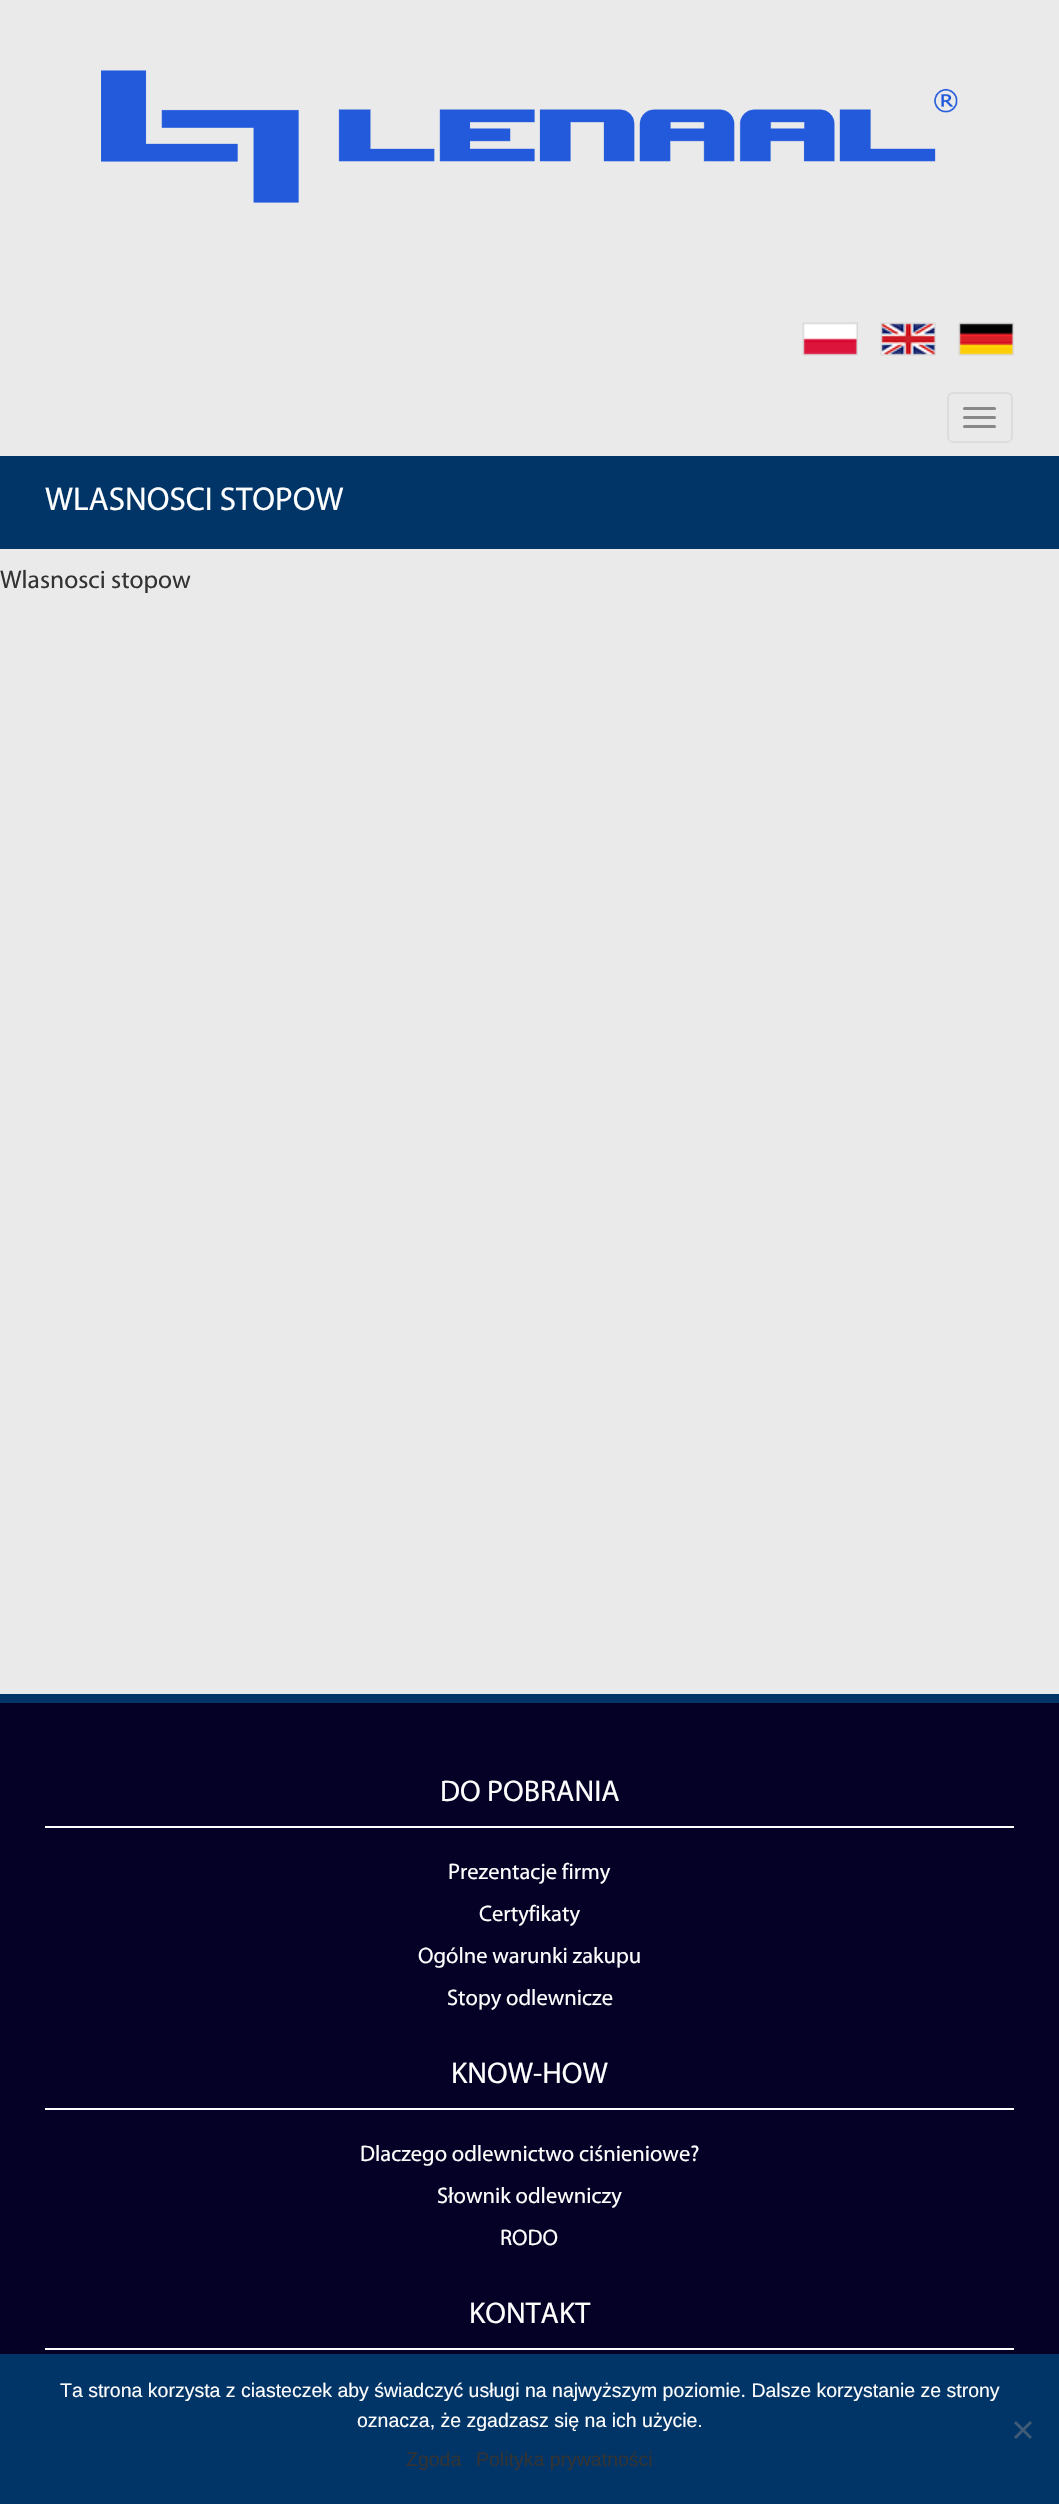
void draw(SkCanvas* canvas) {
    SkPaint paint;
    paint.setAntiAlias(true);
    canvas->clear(0xFFEAEAEA);
    canvas->drawImageRect(SkImages::DeferredFromEncodedData(SkData::MakeFromFileName("img1.png")), SkRect::MakeXYWH(101, 70, 857, 133), SkSamplingOptions());
    canvas->drawImageRect(SkImages::DeferredFromEncodedData(SkData::MakeFromFileName("img2.png")), SkRect::MakeXYWH(802, 322, 56, 34), SkSamplingOptions());
    canvas->drawImageRect(SkImages::DeferredFromEncodedData(SkData::MakeFromFileName("img3.png")), SkRect::MakeXYWH(880, 322, 56, 34), SkSamplingOptions());
    canvas->drawImageRect(SkImages::DeferredFromEncodedData(SkData::MakeFromFileName("img4.png")), SkRect::MakeXYWH(958, 322, 56, 34), SkSamplingOptions());
    paint.setStyle(SkPaint::kStroke_Style);
    paint.setStrokeWidth(2);
    paint.setColor(0xFFDDDDDD);
    canvas->drawRoundRect(SkRect::MakeXYWH(948, 393, 64, 49), 5, 5, paint);
    paint.setStyle(SkPaint::kFill_Style);
    paint.setColor(0xFF888888);
    canvas->drawRoundRect(SkRect::MakeXYWH(963, 407, 33, 3), 1.5f, 1.5f, paint);
    canvas->drawRoundRect(SkRect::MakeXYWH(963, 416, 33, 3), 1.5f, 1.5f, paint);
    canvas->drawRoundRect(SkRect::MakeXYWH(963, 425, 33, 3), 1.5f, 1.5f, paint);
    paint.setColor(0xFF013567);
    canvas->drawRect(SkRect::MakeXYWH(0, 456, 1059, 93), paint);
    SkFont font1(fontMgr->matchFamilyStyle("Myriad", SkFontStyle::Normal()), 33);
    font1.setSubpixel(true);
    paint.setColor(0xFFFFFFFF);
    canvas->drawString("WLASNOSCI STOPOW", 45, 510, font1, paint);
    SkFont font2(fontMgr->matchFamilyStyle("Myriad", SkFontStyle::Normal()), 25.5f);
    font2.setSubpixel(true);
    paint.setColor(0xFF333333);
    canvas->drawString("Wlasnosci stopow", 0, 588, font2, paint);
    paint.setColor(0xFF050126);
    canvas->drawRect(SkRect::MakeXYWH(0, 1703, 1059, 651), paint);
    paint.setColor(0xFF013567);
    canvas->drawRect(SkRect::MakeXYWH(0, 1694, 1059, 9), paint);
    paint.setColor(0xFFFFFFFF);
    canvas->drawRect(SkRect::MakeXYWH(45, 1826, 969, 2), paint);
    SkFont font3(fontMgr->matchFamilyStyle("Myriad", SkFontStyle::Normal()), 30);
    font3.setSubpixel(true);
    canvas->drawString("DO POBRANIA", 440, 1801, font3, paint);
    SkFont font4(fontMgr->matchFamilyStyle("Myriad", SkFontStyle::Normal()), 22.5f);
    font4.setSubpixel(true);
    canvas->drawString("Prezentacje firmy", 448, 1879, font4, paint);
    canvas->drawString("Certyfikaty", 479, 1921, font4, paint);
    canvas->drawString("Ogólne warunki zakupu", 418, 1963, font4, paint);
    canvas->drawString("Stopy odlewnicze", 447, 2005, font4, paint);
    canvas->drawRect(SkRect::MakeXYWH(45, 2108, 969, 2), paint);
    canvas->drawString("KNOW-HOW", 451, 2083, font3, paint);
    canvas->drawString("Dlaczego odlewnictwo ciśnieniowe?", 360, 2161, font4, paint);
    canvas->drawString("Słownik odlewniczy", 437, 2203, font4, paint);
    canvas->drawString("RODO", 500, 2245, font4, paint);
    canvas->drawRect(SkRect::MakeXYWH(45, 2348, 969, 2), paint);
    canvas->drawString("KONTAKT", 469, 2323, font3, paint);
    paint.setColor(0xFF013567);
    canvas->drawRect(SkRect::MakeXYWH(0, 2354, 1059, 150), paint);
    SkFont font5(fontMgr->matchFamilyStyle("Liberation Sans", SkFontStyle::Normal()), 19.5f);
    font5.setSubpixel(true);
    paint.setColor(0xFFFFFFFF);
    canvas->drawString("Ta strona korzysta z ciasteczek aby świadczyć usługi na najwyższym poziomie. Dalsze korzystanie ze strony", 60, 2397, font5, paint);
    canvas->drawString("oznacza, że zgadzasz się na ich użycie.", 357, 2427, font5, paint);
    paint.setColor(0xFF415B74);
    canvas->drawPath(SkPathBuilder().moveTo(1030, 2421).lineTo(1032, 2423).lineTo(1016, 2439).lineTo(1014, 2437).close().detach(), paint);
    canvas->drawPath(SkPathBuilder().moveTo(1014, 2423).lineTo(1016, 2421).lineTo(1032, 2437).lineTo(1030, 2439).close().detach(), paint);
    paint.setColor(0xFF333333);
    canvas->drawString("Zgoda", 406, 2466, font5, paint);
    canvas->drawString("Polityka prywatności", 476, 2466, font5, paint);
}
